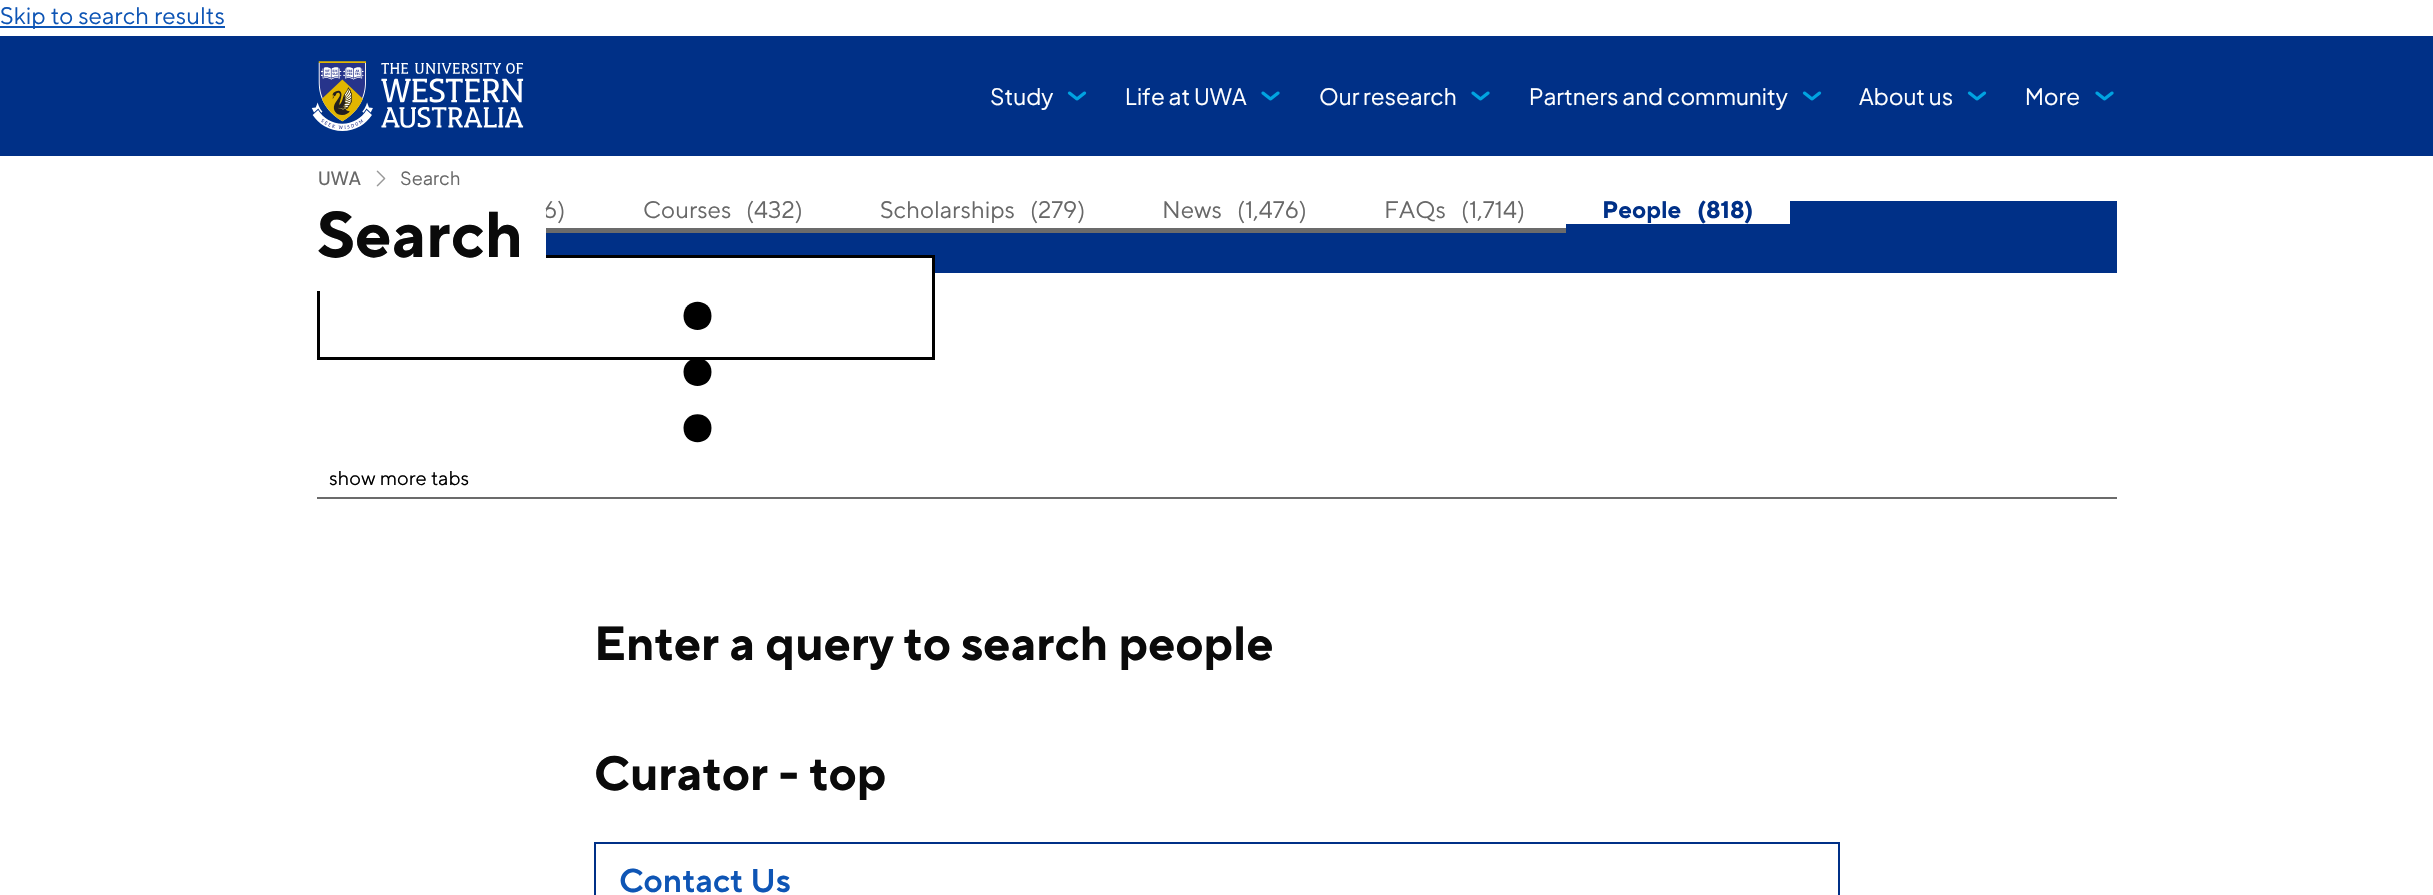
void draw(SkCanvas* canvas) {
    SkPaint paint;
    paint.setAntiAlias(true);
    canvas->clear(0xFFFFFFFF);
    paint.setColor(0xFF0E55B5);
    canvas->drawRect(SkRect::MakeXYWH(0, 26, 225, 2), paint);
    SkFont font1(fontMgr->matchFamilyStyle("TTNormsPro", SkFontStyle::Normal()), 24);
    font1.setSubpixel(true);
    canvas->drawString("Skip to search results", 0, 24, font1, paint);
    paint.setColor(0xFF003087);
    canvas->drawRect(SkRect::MakeXYWH(0, 36, 2433, 120), paint);
    canvas->drawImageRect(SkImages::DeferredFromEncodedData(SkData::MakeFromFileName("img1.png")), SkRect::MakeXYWH(311, 61, 213, 70), SkSamplingOptions());
    SkFont font2(fontMgr->matchFamilyStyle("Plus Jakarta Sans", SkFontStyle::Normal()), 22.5f);
    font2.setSubpixel(true);
    paint.setColor(0xFFFFFFFF);
    canvas->drawString("Study", 990, 105, font2, paint);
    canvas->drawImageRect(SkImages::DeferredFromEncodedData(SkData::MakeFromFileName("img2.png")), SkRect::MakeXYWH(1067, 91, 20, 10), SkSamplingOptions());
    canvas->drawString("Life at UWA", 1125, 105, font2, paint);
    canvas->drawImageRect(SkImages::DeferredFromEncodedData(SkData::MakeFromFileName("img3.png")), SkRect::MakeXYWH(1261, 91, 19, 10), SkSamplingOptions());
    canvas->drawString("Our research", 1319, 105, font2, paint);
    canvas->drawImageRect(SkImages::DeferredFromEncodedData(SkData::MakeFromFileName("img3.png")), SkRect::MakeXYWH(1471, 91, 19, 10), SkSamplingOptions());
    canvas->drawString("Partners and community", 1529, 105, font2, paint);
    canvas->drawImageRect(SkImages::DeferredFromEncodedData(SkData::MakeFromFileName("img2.png")), SkRect::MakeXYWH(1802, 91, 20, 10), SkSamplingOptions());
    canvas->drawString("About us", 1859, 105, font2, paint);
    canvas->drawImageRect(SkImages::DeferredFromEncodedData(SkData::MakeFromFileName("img2.png")), SkRect::MakeXYWH(1967, 91, 20, 10), SkSamplingOptions());
    canvas->drawString("More", 2025, 105, font2, paint);
    canvas->drawImageRect(SkImages::DeferredFromEncodedData(SkData::MakeFromFileName("img3.png")), SkRect::MakeXYWH(2095, 91, 19, 10), SkSamplingOptions());
    SkFont font3(fontMgr->matchFamilyStyle("Plus Jakarta Sans", SkFontStyle(500, SkFontStyle::kNormal_Width, SkFontStyle::kUpright_Slant)), 18);
    font3.setSubpixel(true);
    paint.setColor(0xFF686868);
    canvas->drawString("UWA", 318, 185, font3, paint);
    canvas->drawImageRect(SkImages::DeferredFromEncodedData(SkData::MakeFromFileName("img4.png")), SkRect::MakeXYWH(376, 170, 10, 17), SkSamplingOptions());
    SkFont font4(fontMgr->matchFamilyStyle("Plus Jakarta Sans", SkFontStyle::Normal()), 18);
    font4.setSubpixel(true);
    canvas->drawString("Search", 400, 185, font4, paint);
    paint.setColor(0xFF003087);
    canvas->drawRect(SkRect::MakeXYWH(546, 201, 1571, 72), paint);
    paint.setColor(0xFFFFFFFF);
    canvas->drawRect(SkRect::MakeXYWH(546, 201, 1020, 27), paint);
    paint.setColor(0xFF686868);
    canvas->drawString("6)", 543, 218, font1, paint);
    paint.setColor(0xFF6B6B6B);
    canvas->drawRect(SkRect::MakeXYWH(546, 228, 1020, 5), paint);
    paint.setColor(0xFF686868);
    canvas->drawString("Courses", 643, 218, font1, paint);
    canvas->drawString("(432)", 746, 218, font1, paint);
    canvas->drawString("Scholarships", 880, 218, font1, paint);
    canvas->drawString("(279)", 1030, 218, font1, paint);
    canvas->drawString("News", 1162, 218, font1, paint);
    canvas->drawString("(1,476)", 1237, 218, font1, paint);
    canvas->drawString("FAQs", 1384, 218, font1, paint);
    canvas->drawString("(1,714)", 1461, 218, font1, paint);
    paint.setColor(0xFFFFFFFF);
    canvas->drawRect(SkRect::MakeXYWH(1566, 201, 224, 23), paint);
    SkFont font5(fontMgr->matchFamilyStyle("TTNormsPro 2", SkFontStyle::Normal()), 24);
    font5.setSubpixel(true);
    paint.setColor(0xFF003087);
    canvas->drawString("People", 1602, 218, font5, paint);
    canvas->drawString("(818)", 1697, 218, font5, paint);
    paint.setColor(0xFFFFFFFF);
    canvas->drawRect(SkRect::MakeXYWH(546, 258, 386, 15), paint);
    paint.setStyle(SkPaint::kStroke_Style);
    paint.setStrokeWidth(3);
    paint.setColor(0xFF000000);
    canvas->drawRect(SkRect::MakeXYWH(318.5f, 256.5f, 615, 102), paint);
    paint.setStyle(SkPaint::kFill_Style);
    canvas->drawPath(SkPathBuilder().moveTo(683.5f, 316).cubicTo(683.5f, 334.5f, 711.5f, 334.5f, 711.5f, 316).cubicTo(711.5f, 297, 683.5f, 297, 683.5f, 316).close().detach(), paint);
    canvas->drawPath(SkPathBuilder().moveTo(683.5f, 372).cubicTo(683.5f, 390.5f, 711.5f, 390.5f, 711.5f, 372).cubicTo(711.5f, 353.5f, 683.5f, 353.5f, 683.5f, 372).close().detach(), paint);
    canvas->drawPath(SkPathBuilder().moveTo(683.5f, 428).cubicTo(683.5f, 447, 711.5f, 447, 711.5f, 428).cubicTo(711.5f, 409.5f, 683.5f, 409.5f, 683.5f, 428).close().detach(), paint);
    SkFont font6(fontMgr->matchFamilyStyle("TTNormsPro", SkFontStyle::Normal()), 20);
    font6.setSubpixel(true);
    canvas->drawString("show more tabs", 329, 485, font6, paint);
    paint.setColor(0xFF6B6B6B);
    canvas->drawRect(SkRect::MakeXYWH(317, 497, 1800, 2), paint);
    SkFont font7(fontMgr->matchFamilyStyle("TTNormsPro 2", SkFontStyle::Normal()), 48);
    font7.setSubpixel(true);
    paint.setColor(0xFF0A0A0A);
    canvas->drawString("Enter a query to search people", 594, 660, font7, paint);
    canvas->drawString("Curator - top", 594, 790, font7, paint);
    paint.setColor(0xFF003087);
    canvas->drawRect(SkRect::MakeXYWH(594, 842, 1245, 2), paint);
    canvas->drawRect(SkRect::MakeXYWH(1838, 842, 2, 53), paint);
    canvas->drawRect(SkRect::MakeXYWH(594, 842, 2, 53), paint);
    SkFont font8(fontMgr->matchFamilyStyle("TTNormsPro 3", SkFontStyle::Normal()), 33);
    font8.setSubpixel(true);
    paint.setColor(0xFF0E55B5);
    canvas->drawString("Contact Us", 619, 892, font8, paint);
    paint.setColor(0xFFFFFFFF);
    canvas->drawRect(SkRect::MakeXYWH(317, 209, 229, 82), paint);
    SkFont font9(fontMgr->matchFamilyStyle("TTNormsPro 2", SkFontStyle::Normal()), 64.5f);
    font9.setSubpixel(true);
    paint.setColor(0xFF0A0A0A);
    canvas->drawString("Search", 317, 257, font9, paint);
}
